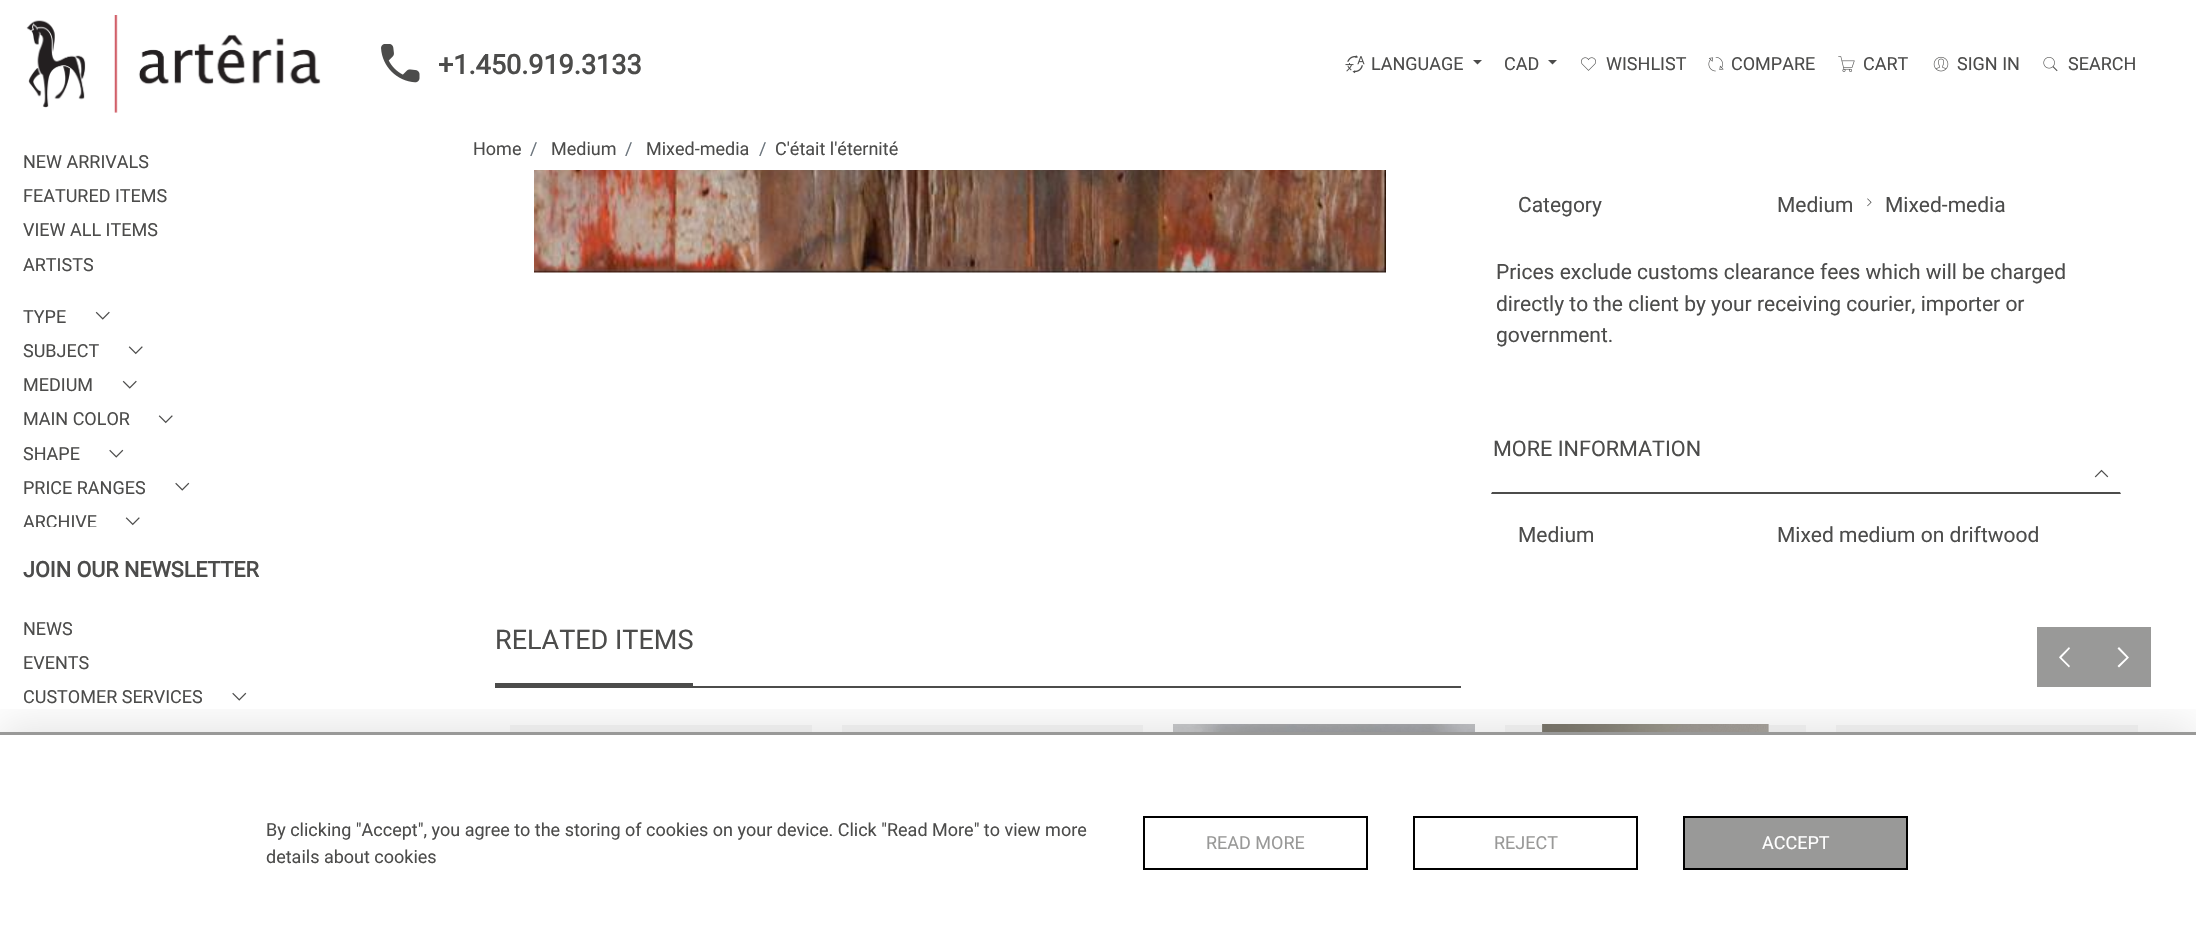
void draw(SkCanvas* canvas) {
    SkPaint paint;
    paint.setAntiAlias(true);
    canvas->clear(0xFFFFFFFF);
    canvas->drawImageRect(SkImages::DeferredFromEncodedData(SkData::MakeFromFileName("img1.png")), SkRect::MakeXYWH(26, 15, 295, 98), SkSamplingOptions());
    canvas->drawImageRect(SkImages::DeferredFromEncodedData(SkData::MakeFromFileName("img2.png")), SkRect::MakeXYWH(381, 44, 39, 39), SkSamplingOptions());
    SkFont font1(fontMgr->matchFamilyStyle("Roboto", SkFontStyle::Bold()), 27);
    font1.setSubpixel(true);
    paint.setColor(0xFF4C4C4B);
    canvas->drawString("+1.450.919.3133", 438, 74, font1, paint);
    canvas->drawImageRect(SkImages::DeferredFromEncodedData(SkData::MakeFromFileName("img3.png")), SkRect::MakeXYWH(1345, 55, 20, 19), SkSamplingOptions());
    SkFont font2(fontMgr->matchFamilyStyle("Roboto", SkFontStyle::Normal()), 18);
    font2.setSubpixel(true);
    canvas->drawString("LANGUAGE", 1371, 70, font2, paint);
    canvas->drawPath(SkPathBuilder().moveTo(1473, 60).lineTo(1482, 60).lineTo(1477.5f, 64.5f).close().detach(), paint);
    canvas->drawString("CAD", 1504, 70, font2, paint);
    canvas->drawPath(SkPathBuilder().moveTo(1548, 60).lineTo(1557, 60).lineTo(1552.5f, 64.5f).close().detach(), paint);
    canvas->drawImageRect(SkImages::DeferredFromEncodedData(SkData::MakeFromFileName("img4.png")), SkRect::MakeXYWH(1581, 57, 15, 14), SkSamplingOptions());
    canvas->drawString("WISHLIST", 1606, 70, font2, paint);
    canvas->drawImageRect(SkImages::DeferredFromEncodedData(SkData::MakeFromFileName("img5.png")), SkRect::MakeXYWH(1708, 57, 16, 15), SkSamplingOptions());
    canvas->drawString("COMPARE", 1731, 70, font2, paint);
    canvas->drawImageRect(SkImages::DeferredFromEncodedData(SkData::MakeFromFileName("img6.png")), SkRect::MakeXYWH(1838, 56, 17, 16), SkSamplingOptions());
    canvas->drawString("CART", 1863, 70, font2, paint);
    canvas->drawImageRect(SkImages::DeferredFromEncodedData(SkData::MakeFromFileName("img7.png")), SkRect::MakeXYWH(1933, 56, 16, 16), SkSamplingOptions());
    canvas->drawString("SIGN IN", 1957, 70, font2, paint);
    canvas->drawImageRect(SkImages::DeferredFromEncodedData(SkData::MakeFromFileName("img8.png")), SkRect::MakeXYWH(2043, 57, 15, 15), SkSamplingOptions());
    canvas->drawString("SEARCH", 2068, 70, font2, paint);
    canvas->drawString("NEW ARRIVALS", 23, 168, font2, paint);
    canvas->drawString("FEATURED ITEMS", 23, 202, font2, paint);
    canvas->drawString("VIEW ALL ITEMS", 23, 236, font2, paint);
    canvas->drawString("ARTISTS", 23, 271, font2, paint);
    canvas->drawString("TYPE", 23, 323, font2, paint);
    canvas->drawImageRect(SkImages::DeferredFromEncodedData(SkData::MakeFromFileName("img9.png")), SkRect::MakeXYWH(95, 311, 15, 9), SkSamplingOptions());
    canvas->drawString("SUBJECT", 23, 357, font2, paint);
    canvas->drawImageRect(SkImages::DeferredFromEncodedData(SkData::MakeFromFileName("img10.png")), SkRect::MakeXYWH(128, 346, 15, 9), SkSamplingOptions());
    canvas->drawString("MEDIUM", 23, 391, font2, paint);
    canvas->drawImageRect(SkImages::DeferredFromEncodedData(SkData::MakeFromFileName("img9.png")), SkRect::MakeXYWH(122, 380, 15, 9), SkSamplingOptions());
    canvas->drawString("MAIN COLOR", 23, 425, font2, paint);
    canvas->drawImageRect(SkImages::DeferredFromEncodedData(SkData::MakeFromFileName("img10.png")), SkRect::MakeXYWH(158, 415, 15, 9), SkSamplingOptions());
    canvas->drawString("SHAPE", 23, 460, font2, paint);
    canvas->drawImageRect(SkImages::DeferredFromEncodedData(SkData::MakeFromFileName("img11.png")), SkRect::MakeXYWH(109, 449, 15, 9), SkSamplingOptions());
    canvas->drawString("PRICE RANGES", 23, 494, font2, paint);
    canvas->drawImageRect(SkImages::DeferredFromEncodedData(SkData::MakeFromFileName("img11.png")), SkRect::MakeXYWH(175, 482, 15, 9), SkSamplingOptions());
    canvas->save();
    canvas->clipRect(SkRect::MakeXYWH(23, 150, 405, 377));
    canvas->drawString("ARCHIVE", 23, 528, font2, paint);
    canvas->restore();
    canvas->drawImageRect(SkImages::DeferredFromEncodedData(SkData::MakeFromFileName("img10.png")), SkRect::MakeXYWH(125, 517, 15, 9), SkSamplingOptions());
    SkFont font3(fontMgr->matchFamilyStyle("Roboto", SkFontStyle::Bold()), 21.6f);
    font3.setSubpixel(true);
    canvas->drawString("JOIN OUR NEWSLETTER", 23, 577, font3, paint);
    canvas->drawString("NEWS", 23, 635, font2, paint);
    canvas->drawString("EVENTS", 23, 669, font2, paint);
    canvas->drawString("CUSTOMER SERVICES", 23, 703, font2, paint);
    canvas->drawImageRect(SkImages::DeferredFromEncodedData(SkData::MakeFromFileName("img11.png")), SkRect::MakeXYWH(232, 692, 15, 9), SkSamplingOptions());
    canvas->drawString("Home", 473, 155, font2, paint);
    paint.setColor(0xFF6C757D);
    canvas->drawString("/", 530, 155, font2, paint);
    paint.setColor(0xFF4C4C4B);
    canvas->drawString("Medium", 551, 155, font2, paint);
    paint.setColor(0xFF6C757D);
    canvas->drawString("/", 625, 155, font2, paint);
    paint.setColor(0xFF4C4C4B);
    canvas->drawString("Mixed-media", 646, 155, font2, paint);
    paint.setColor(0xFF6C757D);
    canvas->drawString("/", 759, 155, font2, paint);
    paint.setColor(0xFF4C4C4B);
    canvas->drawString("C'était l'éternité", 775, 155, font2, paint);
    canvas->drawImageRect(SkImages::DeferredFromEncodedData(SkData::MakeFromFileName("img12.png")), SkRect::MakeXYWH(534, 170, 852, 103), SkSamplingOptions());
    SkFont font4(fontMgr->matchFamilyStyle("Roboto", SkFontStyle::Normal()), 21);
    font4.setSubpixel(true);
    canvas->drawString("Category", 1518, 212, font4, paint);
    canvas->drawString("Medium", 1777, 212, font4, paint);
    canvas->drawImageRect(SkImages::DeferredFromEncodedData(SkData::MakeFromFileName("img13.png")), SkRect::MakeXYWH(1867, 198, 5, 9), SkSamplingOptions());
    canvas->drawString("Mixed-media", 1885, 212, font4, paint);
    canvas->drawString("Prices exclude customs clearance fees which will be charged", 1496, 279, font4, paint);
    canvas->drawString("directly to the client by your receiving courier, importer or", 1496, 311, font4, paint);
    canvas->drawString("government.", 1496, 342, font4, paint);
    canvas->drawPath(SkPathBuilder().moveTo(2121, 494).lineTo(1491, 494).lineTo(1492, 492).lineTo(2120, 492).close().detach(), paint);
    SkFont font5(fontMgr->matchFamilyStyle("Roboto", SkFontStyle::Normal()), 21.6f);
    font5.setSubpixel(true);
    canvas->drawString("MORE INFORMATION", 1493, 456, font5, paint);
    canvas->drawImageRect(SkImages::DeferredFromEncodedData(SkData::MakeFromFileName("img14.png")), SkRect::MakeXYWH(2094, 469, 15, 9), SkSamplingOptions());
    canvas->drawString("Medium", 1518, 542, font4, paint);
    canvas->drawString("Mixed medium on driftwood", 1777, 542, font4, paint);
    paint.setColor(0xFF999998);
    canvas->drawRect(SkRect::MakeXYWH(2037, 627, 114, 60), paint);
    paint.setColor(0xFFFFFFFF);
    canvas->drawPath(SkPathBuilder().moveTo(2060, 656).lineTo(2059, 657.5f).lineTo(2069, 667.5f).lineTo(2070, 666).lineTo(2061.5f, 657.5f).lineTo(2070, 648.5f).lineTo(2069, 647).close().detach(), paint);
    canvas->drawPath(SkPathBuilder().moveTo(2128, 658.5f).lineTo(2129, 657.5f).lineTo(2119, 647).lineTo(2117.5f, 648.5f).lineTo(2126.5f, 657.5f).lineTo(2117.5f, 666).lineTo(2119, 667.5f).close().detach(), paint);
    paint.setColor(0xFFF6F6F6);
    canvas->drawRect(SkRect::MakeXYWH(510, 725, 302, 7), paint);
    canvas->drawRect(SkRect::MakeXYWH(842, 725, 301, 7), paint);
    canvas->drawImageRect(SkImages::DeferredFromEncodedData(SkData::MakeFromFileName("img15.png")), SkRect::MakeXYWH(1173, 724, 302, 8), SkSamplingOptions());
    canvas->drawRect(SkRect::MakeXYWH(1505, 725, 301, 7), paint);
    canvas->drawImageRect(SkImages::DeferredFromEncodedData(SkData::MakeFromFileName("img16.png")), SkRect::MakeXYWH(1542, 724, 227, 8), SkSamplingOptions());
    canvas->drawRect(SkRect::MakeXYWH(1836, 725, 302, 7), paint);
    paint.setColor(0xFF4C4C4B);
    canvas->drawRect(SkRect::MakeXYWH(495, 686, 966, 2), paint);
    canvas->drawRect(SkRect::MakeXYWH(495, 683, 198, 3), paint);
    SkFont font6(fontMgr->matchFamilyStyle("Roboto", SkFontStyle::Normal()), 27);
    font6.setSubpixel(true);
    canvas->drawString("RELATED ITEMS", 495, 649, font6, paint);
    canvas->save();
    canvas->clipRect(SkRect::MakeXYWH(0, 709, 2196, 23));
    paint.setColor(0x1A000000);
    paint.setMaskFilter(SkMaskFilter::MakeBlur(kNormal_SkBlurStyle, 19.5f));
    canvas->drawRect(SkRect::MakeXYWH(0, 725, 2196, 219), paint);
    paint.setMaskFilter(nullptr);
    canvas->restore();
    paint.setColor(0xFF999998);
    canvas->drawRect(SkRect::MakeXYWH(0, 732, 2196, 3), paint);
    paint.setColor(0xFF4C4C4B);
    canvas->drawString("By clicking \"Accept\", you agree to the storing of cookies on your device. Click \"Read More\" to view more", 266, 836, font2, paint);
    canvas->drawString("details about cookies", 266, 863, font2, paint);
    paint.setStyle(SkPaint::kStroke_Style);
    paint.setStrokeWidth(2);
    paint.setColor(0xFF000000);
    canvas->drawRect(SkRect::MakeXYWH(1144, 817, 223, 52), paint);
    paint.setStyle(SkPaint::kFill_Style);
    paint.setColor(0xFF999998);
    canvas->drawString("READ MORE", 1206, 849, font2, paint);
    paint.setStyle(SkPaint::kStroke_Style);
    paint.setColor(0xFF000000);
    canvas->drawRect(SkRect::MakeXYWH(1414, 817, 223, 52), paint);
    paint.setStyle(SkPaint::kFill_Style);
    paint.setColor(0xFF999998);
    canvas->drawString("REJECT", 1494, 849, font2, paint);
    canvas->drawRect(SkRect::MakeXYWH(1684, 817, 223, 52), paint);
    paint.setStyle(SkPaint::kStroke_Style);
    paint.setColor(0xFF000000);
    canvas->drawRect(SkRect::MakeXYWH(1684, 817, 223, 52), paint);
    paint.setStyle(SkPaint::kFill_Style);
    paint.setColor(0xFFFFFFFF);
    canvas->drawString("ACCEPT", 1762, 849, font2, paint);
}
